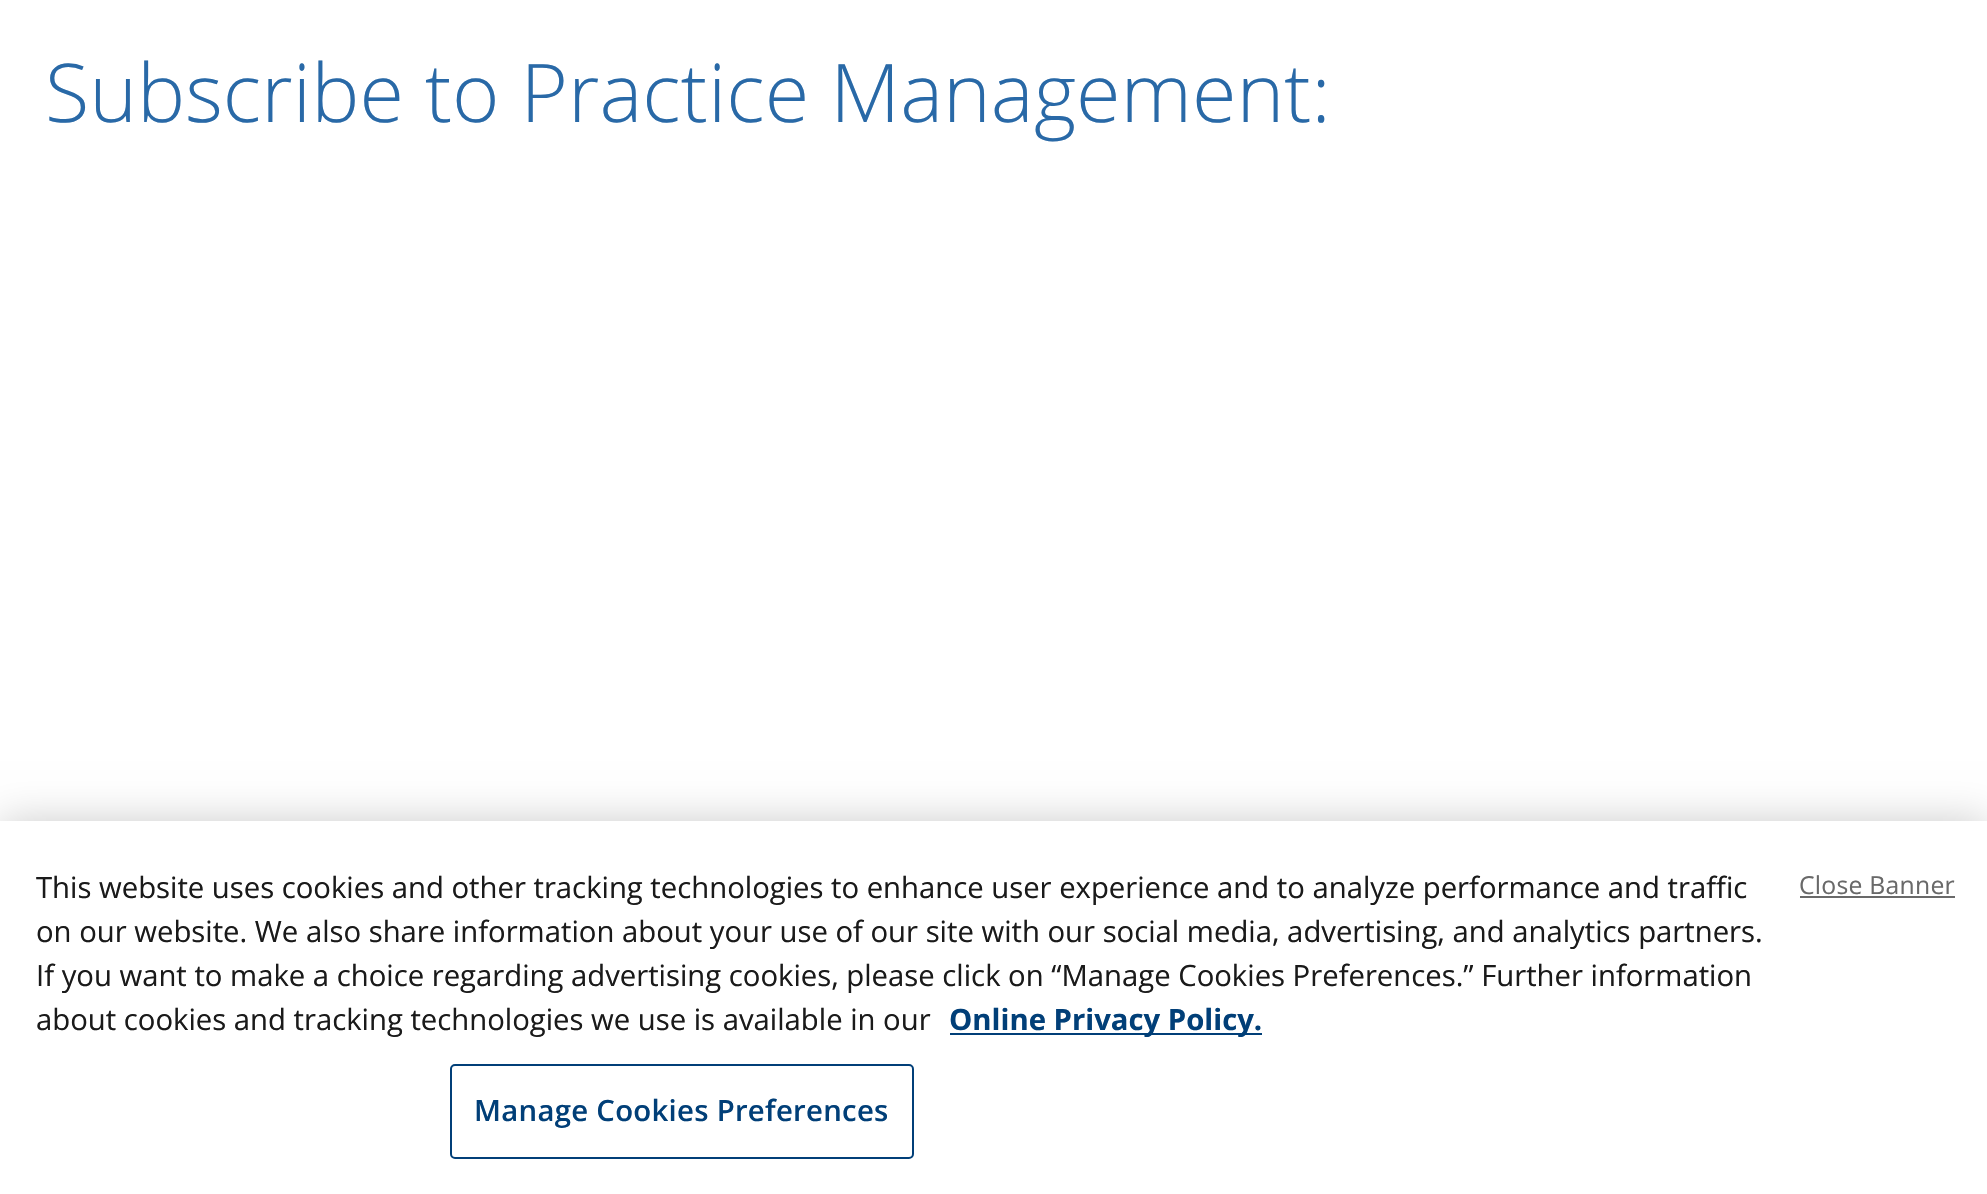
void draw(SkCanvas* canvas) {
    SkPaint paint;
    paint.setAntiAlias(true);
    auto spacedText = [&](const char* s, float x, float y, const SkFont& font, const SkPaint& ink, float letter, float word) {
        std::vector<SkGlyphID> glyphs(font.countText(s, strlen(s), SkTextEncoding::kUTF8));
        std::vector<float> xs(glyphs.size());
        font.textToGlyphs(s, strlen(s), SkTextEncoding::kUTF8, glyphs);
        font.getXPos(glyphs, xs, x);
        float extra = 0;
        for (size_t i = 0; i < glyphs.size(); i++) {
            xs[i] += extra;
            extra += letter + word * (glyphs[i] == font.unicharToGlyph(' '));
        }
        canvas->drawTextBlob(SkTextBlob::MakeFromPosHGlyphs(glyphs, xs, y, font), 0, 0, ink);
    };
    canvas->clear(0xFFFFFFFF);
    SkFont font1(fontMgr->matchFamilyStyle("Open Sans", SkFontStyle(300, SkFontStyle::kNormal_Width, SkFontStyle::kUpright_Slant)), 81);
    font1.setSubpixel(true);
    paint.setColor(0xFF2969A7);
    canvas->drawString("Subscribe to Practice Management:", 45, 122, font1, paint);
    paint.setColor(0x33000000);
    paint.setMaskFilter(SkMaskFilter::MakeBlur(kNormal_SkBlurStyle, 20));
    canvas->drawRect(SkRect::MakeXYWH(0, 821, 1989, 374), paint);
    paint.setMaskFilter(nullptr);
    paint.setColor(0xFFFFFFFF);
    canvas->drawRect(SkRect::MakeXYWH(0, 821, 1987, 373), paint);
    SkFont font2(fontMgr->matchFamilyStyle("Open Sans", SkFontStyle::Normal()), 29.27f);
    font2.setSubpixel(true);
    paint.setColor(0xFF1A1A1A);
    canvas->drawString("This website uses cookies and other tracking technologies to enhance user experience and to analyze performance and traffic", 36, 898, font2, paint);
    canvas->drawString("on our website. We also share information about your use of our site with our social media, advertising, and analytics partners.", 36, 942, font2, paint);
    canvas->drawString("If you want to make a choice regarding advertising cookies, please click on “Manage Cookies Preferences.” Further information", 36, 986, font2, paint);
    canvas->drawString("about cookies and tracking technologies we use is available in our", 36, 1030, font2, paint);
    paint.setColor(0xFF013F78);
    canvas->drawRect(SkRect::MakeXYWH(950, 1033, 312, 2), paint);
    SkFont font3(fontMgr->matchFamilyStyle("Open Sans", SkFontStyle::Bold()), 29.27f);
    font3.setSubpixel(true);
    canvas->drawString("Online Privacy Policy.", 949, 1030, font3, paint);
    paint.setStyle(SkPaint::kStroke_Style);
    paint.setStrokeWidth(2);
    canvas->drawRoundRect(SkRect::MakeXYWH(451, 1065, 462, 93), 4, 4, paint);
    SkFont font4(fontMgr->matchFamilyStyle("Open Sans", SkFontStyle(600, SkFontStyle::kNormal_Width, SkFontStyle::kUpright_Slant)), 29.27f);
    font4.setSubpixel(true);
    paint.setStyle(SkPaint::kFill_Style);
    spacedText("Manage Cookies Preferences", 474, 1121, font4, paint, 0.3f, 0);
    SkFont font5(fontMgr->matchFamilyStyle("Open Sans", SkFontStyle::Normal()), 24.75f);
    font5.setSubpixel(true);
    paint.setColor(0xFF696969);
    spacedText("Close Banner", 1799, 894, font5, paint, 0.25f, 0);
    canvas->drawRect(SkRect::MakeXYWH(1800, 896, 155, 2), paint);
}
